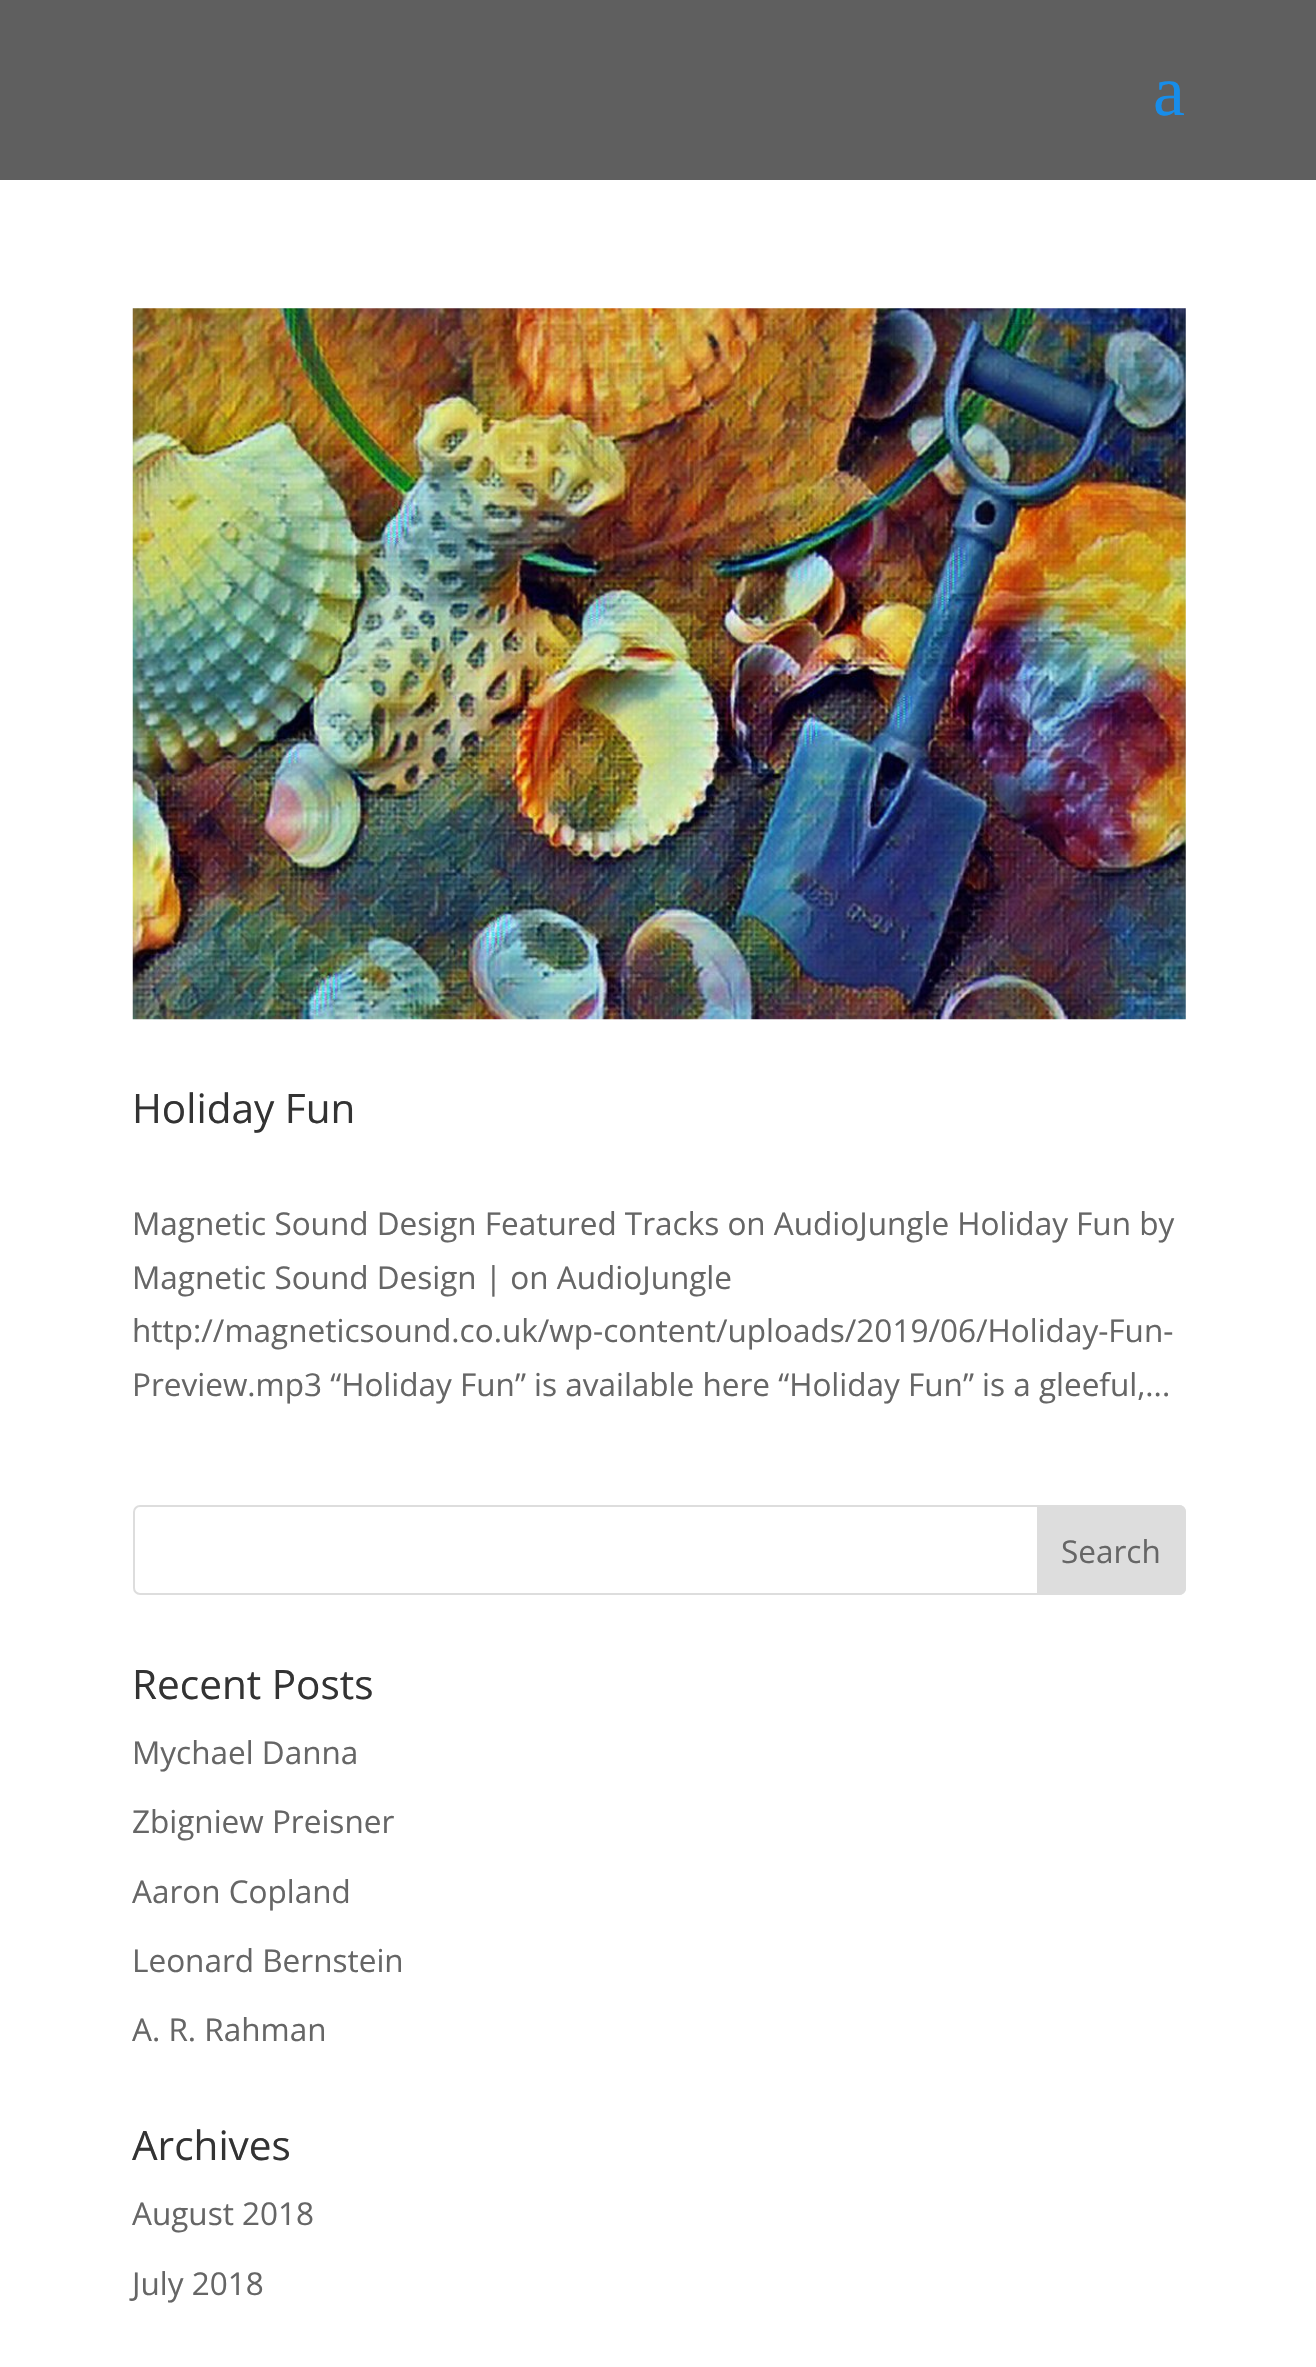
void draw(SkCanvas* canvas) {
    SkPaint paint;
    paint.setAntiAlias(true);
    canvas->clear(0xFFFFFFFF);
    paint.setColor(0xFF5F5F5F);
    canvas->drawRect(SkRect::MakeXYWH(0, 0, 1316, 180), paint);
    SkFont font1(fontMgr->matchFamilyStyle("Liberation Serif", SkFontStyle::Normal()), 72);
    font1.setSubpixel(true);
    paint.setColor(0xFF178DEA);
    canvas->drawString("a", 1153, 115, font1, paint);
    canvas->drawImageRect(SkImages::DeferredFromEncodedData(SkData::MakeFromFileName("img1.png")), SkRect::MakeXYWH(132, 308, 1054, 712), SkSamplingOptions());
    SkFont font2(fontMgr->matchFamilyStyle("Open Sans", SkFontStyle::Normal()), 40.5f);
    font2.setSubpixel(true);
    paint.setColor(0xFF333333);
    canvas->drawString("Holiday Fun", 132, 1123, font2, paint);
    SkFont font3(fontMgr->matchFamilyStyle("Open Sans", SkFontStyle::Normal()), 31.5f);
    font3.setSubpixel(true);
    paint.setColor(0xFF666666);
    canvas->drawString("Magnetic Sound Design Featured Tracks on AudioJungle Holiday Fun by", 132, 1235, font3, paint);
    canvas->drawString("Magnetic Sound Design | on AudioJungle", 132, 1289, font3, paint);
    canvas->drawString("http://magneticsound.co.uk/wp-content/uploads/2019/06/Holiday-Fun-", 132, 1342, font3, paint);
    canvas->drawString("Preview.mp3 “Holiday Fun” is available here “Holiday Fun” is a gleeful,...", 132, 1396, font3, paint);
    paint.setStyle(SkPaint::kStroke_Style);
    paint.setStrokeWidth(2);
    paint.setColor(0xFFDDDDDD);
    canvas->drawRoundRect(SkRect::MakeXYWH(134, 1506, 1051, 88), 6, 6, paint);
    paint.setStyle(SkPaint::kFill_Style);
    canvas->drawPath(SkPathBuilder().moveTo(1038, 1506).lineTo(1179, 1506).cubicTo(1182.5f, 1506, 1185, 1508.5f, 1185, 1512).lineTo(1185, 1588).cubicTo(1185, 1591.5f, 1182.5f, 1594, 1179, 1594).lineTo(1038, 1594).close().detach(), paint);
    paint.setStyle(SkPaint::kStroke_Style);
    canvas->drawPath(SkPathBuilder().moveTo(1038, 1506).lineTo(1179, 1506).cubicTo(1182.5f, 1506, 1185, 1508.5f, 1185, 1512).lineTo(1185, 1588).cubicTo(1185, 1591.5f, 1182.5f, 1594, 1179, 1594).lineTo(1038, 1594).close().detach(), paint);
    paint.setStyle(SkPaint::kFill_Style);
    paint.setColor(0xFF666666);
    canvas->drawString("Search", 1061, 1563, font3, paint);
    paint.setColor(0xFF333333);
    canvas->drawString("Recent Posts", 132, 1699, font2, paint);
    paint.setColor(0xFF666666);
    canvas->drawString("Mychael Danna", 132, 1764, font3, paint);
    canvas->drawString("Zbigniew Preisner", 132, 1833, font3, paint);
    canvas->drawString("Aaron Copland", 132, 1903, font3, paint);
    canvas->drawString("Leonard Bernstein", 132, 1972, font3, paint);
    canvas->drawString("A. R. Rahman", 132, 2041, font3, paint);
    paint.setColor(0xFF333333);
    canvas->drawString("Archives", 132, 2160, font2, paint);
    paint.setColor(0xFF666666);
    canvas->drawString("August 2018", 132, 2225, font3, paint);
    canvas->drawString("July 2018", 132, 2295, font3, paint);
}
